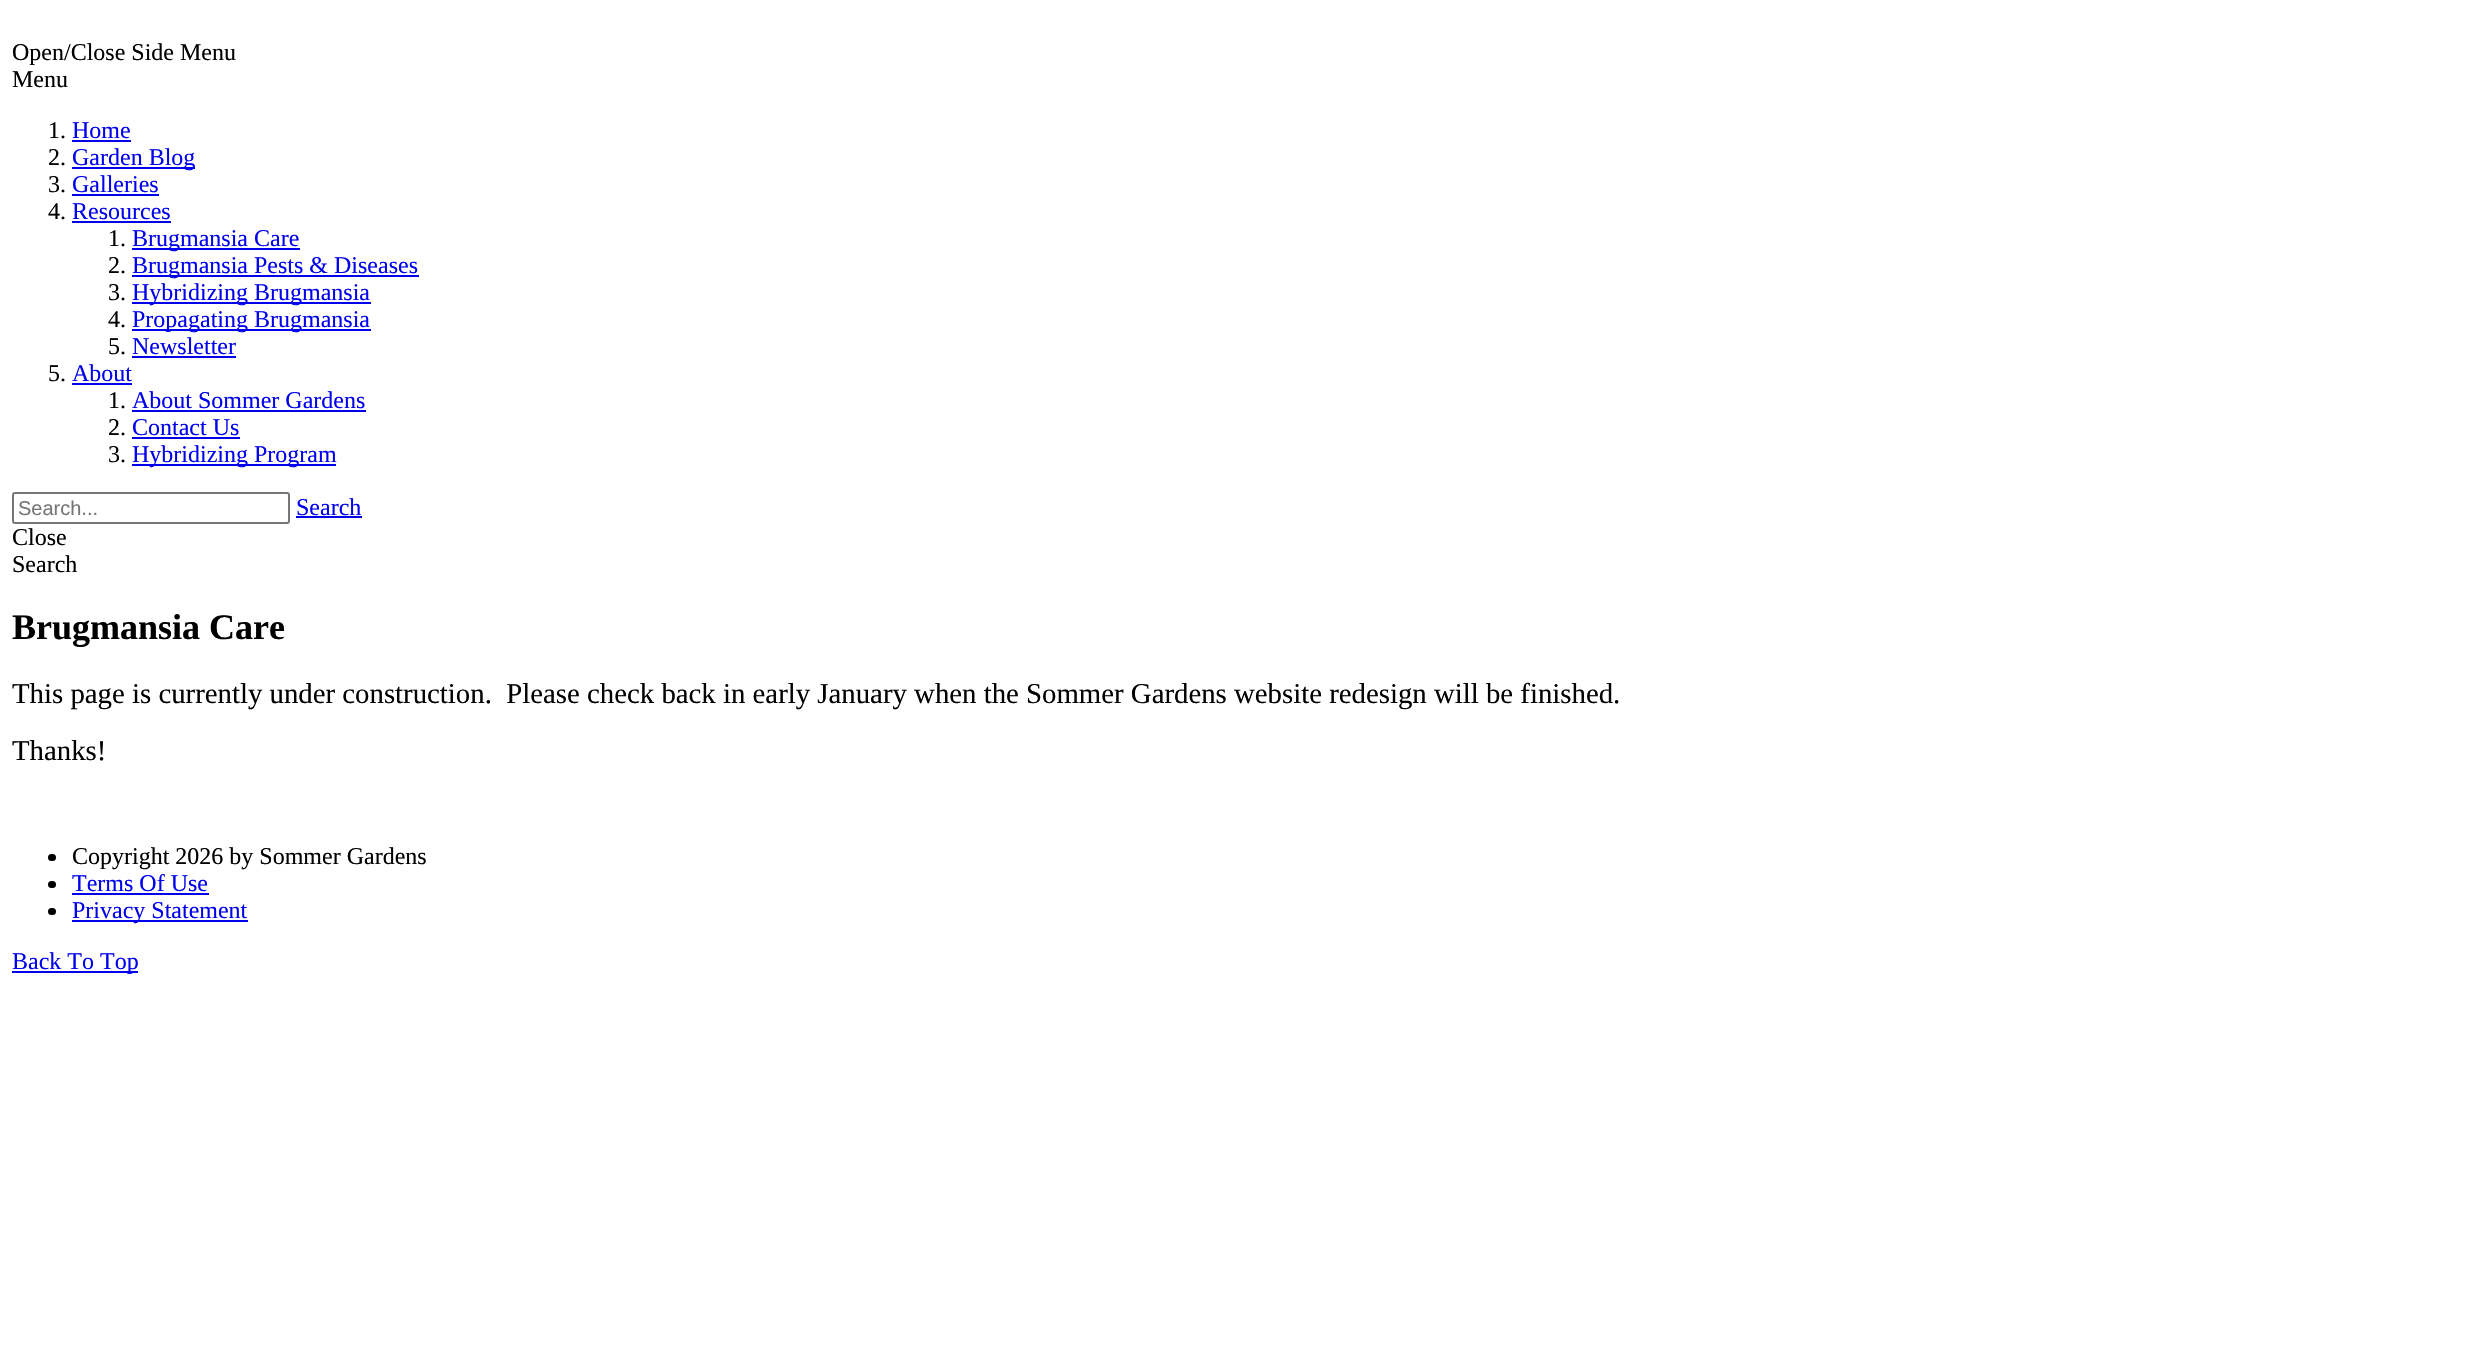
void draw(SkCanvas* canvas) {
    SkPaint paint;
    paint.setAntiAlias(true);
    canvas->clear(0xFFFFFFFF);
    SkFont font1(fontMgr->matchFamilyStyle("Liberation Serif", SkFontStyle::Normal()), 24);
    font1.setSubpixel(true);
    paint.setColor(0xFF000000);
    canvas->drawString("Open/Close Side Menu", 12, 60, font1, paint);
    canvas->drawString("Menu", 12, 87, font1, paint);
    canvas->drawString("1.", 48, 138, font1, paint);
    paint.setColor(0xFF0000EE);
    canvas->drawString("Home", 72, 138, font1, paint);
    canvas->drawRect(SkRect::MakeXYWH(72, 140, 59, 2), paint);
    paint.setColor(0xFF000000);
    canvas->drawString("2.", 48, 165, font1, paint);
    paint.setColor(0xFF0000EE);
    canvas->drawRect(SkRect::MakeXYWH(72, 167, 123, 2), paint);
    canvas->drawString("Garden Blog", 72, 165, font1, paint);
    paint.setColor(0xFF000000);
    canvas->drawString("3.", 48, 192, font1, paint);
    paint.setColor(0xFF0000EE);
    canvas->drawString("Galleries", 72, 192, font1, paint);
    canvas->drawRect(SkRect::MakeXYWH(72, 194, 87, 2), paint);
    paint.setColor(0xFF000000);
    canvas->drawString("4.", 48, 219, font1, paint);
    paint.setColor(0xFF0000EE);
    canvas->drawString("Resources", 72, 219, font1, paint);
    canvas->drawRect(SkRect::MakeXYWH(72, 221, 99, 2), paint);
    paint.setColor(0xFF000000);
    canvas->drawString("1.", 108, 246, font1, paint);
    paint.setColor(0xFF0000EE);
    canvas->drawRect(SkRect::MakeXYWH(132, 248, 168, 2), paint);
    canvas->drawString("Brugmansia Care", 132, 246, font1, paint);
    paint.setColor(0xFF000000);
    canvas->drawString("2.", 108, 273, font1, paint);
    paint.setColor(0xFF0000EE);
    canvas->drawRect(SkRect::MakeXYWH(132, 275, 287, 2), paint);
    canvas->drawString("Brugmansia Pests & Diseases", 132, 273, font1, paint);
    paint.setColor(0xFF000000);
    canvas->drawString("3.", 108, 300, font1, paint);
    paint.setColor(0xFF0000EE);
    canvas->drawRect(SkRect::MakeXYWH(132, 302, 239, 2), paint);
    canvas->drawString("Hybridizing Brugmansia", 132, 300, font1, paint);
    paint.setColor(0xFF000000);
    canvas->drawString("4.", 108, 327, font1, paint);
    paint.setColor(0xFF0000EE);
    canvas->drawRect(SkRect::MakeXYWH(132, 329, 239, 2), paint);
    canvas->drawString("Propagating Brugmansia", 132, 327, font1, paint);
    paint.setColor(0xFF000000);
    canvas->drawString("5.", 108, 354, font1, paint);
    paint.setColor(0xFF0000EE);
    canvas->drawString("Newsletter", 132, 354, font1, paint);
    canvas->drawRect(SkRect::MakeXYWH(132, 356, 104, 2), paint);
    paint.setColor(0xFF000000);
    canvas->drawString("5.", 48, 381, font1, paint);
    paint.setColor(0xFF0000EE);
    canvas->drawString("About", 72, 381, font1, paint);
    canvas->drawRect(SkRect::MakeXYWH(72, 383, 60, 2), paint);
    paint.setColor(0xFF000000);
    canvas->drawString("1.", 108, 408, font1, paint);
    paint.setColor(0xFF0000EE);
    canvas->drawString("About Sommer Gardens", 132, 408, font1, paint);
    canvas->drawRect(SkRect::MakeXYWH(132, 410, 234, 2), paint);
    paint.setColor(0xFF000000);
    canvas->drawString("2.", 108, 435, font1, paint);
    paint.setColor(0xFF0000EE);
    canvas->drawString("Contact Us", 132, 435, font1, paint);
    canvas->drawRect(SkRect::MakeXYWH(132, 437, 108, 2), paint);
    paint.setColor(0xFF000000);
    canvas->drawString("3.", 108, 462, font1, paint);
    paint.setColor(0xFF0000EE);
    canvas->drawRect(SkRect::MakeXYWH(132, 464, 204, 2), paint);
    canvas->drawString("Hybridizing Program", 132, 462, font1, paint);
    paint.setStyle(SkPaint::kStroke_Style);
    paint.setStrokeWidth(2);
    paint.setColor(0xFF767676);
    canvas->drawRoundRect(SkRect::MakeXYWH(13, 493, 276, 30), 2, 2, paint);
    SkFont font2(fontMgr->matchFamilyStyle("Liberation Sans", SkFontStyle::Normal()), 20);
    font2.setSubpixel(true);
    paint.setStyle(SkPaint::kFill_Style);
    paint.setColor(0xFF757575);
    canvas->drawString("Search...", 18, 515, font2, paint);
    paint.setColor(0xFF0000EE);
    canvas->drawString("Search", 296, 515, font1, paint);
    canvas->drawRect(SkRect::MakeXYWH(296, 516, 66, 2), paint);
    paint.setColor(0xFF000000);
    canvas->drawString("Close", 12, 545, font1, paint);
    canvas->drawString("Search", 12, 572, font1, paint);
    SkFont font3(fontMgr->matchFamilyStyle("Liberation Serif", SkFontStyle::Bold()), 36);
    font3.setSubpixel(true);
    canvas->drawString("Brugmansia Care", 12, 639, font3, paint);
    SkFont font4(fontMgr->matchFamilyStyle("Liberation Serif", SkFontStyle::Normal()), 28.8f);
    font4.setSubpixel(true);
    canvas->drawString("This page is currently under construction.  Please check back in early January when the Sommer Gardens website redesign will be finished.", 12, 703, font4, paint);
    canvas->drawString("Thanks!", 12, 760, font4, paint);
    canvas->drawRoundRect(SkRect::MakeXYWH(48, 854, 8, 7), 3.5f, 3.5f, paint);
    canvas->drawString("Copyright 2026 by Sommer Gardens", 72, 864, font1, paint);
    canvas->drawRoundRect(SkRect::MakeXYWH(48, 881, 8, 7), 3.5f, 3.5f, paint);
    paint.setColor(0xFF0000EE);
    canvas->drawString("Terms Of Use", 72, 891, font1, paint);
    canvas->drawRect(SkRect::MakeXYWH(72, 893, 137, 2), paint);
    paint.setColor(0xFF000000);
    canvas->drawRoundRect(SkRect::MakeXYWH(48, 908, 8, 7), 3.5f, 3.5f, paint);
    paint.setColor(0xFF0000EE);
    canvas->drawRect(SkRect::MakeXYWH(72, 920, 176, 2), paint);
    canvas->drawString("Privacy Statement", 72, 918, font1, paint);
    canvas->drawRect(SkRect::MakeXYWH(12, 971, 126, 2), paint);
    canvas->drawString("Back To Top", 12, 969, font1, paint);
}
